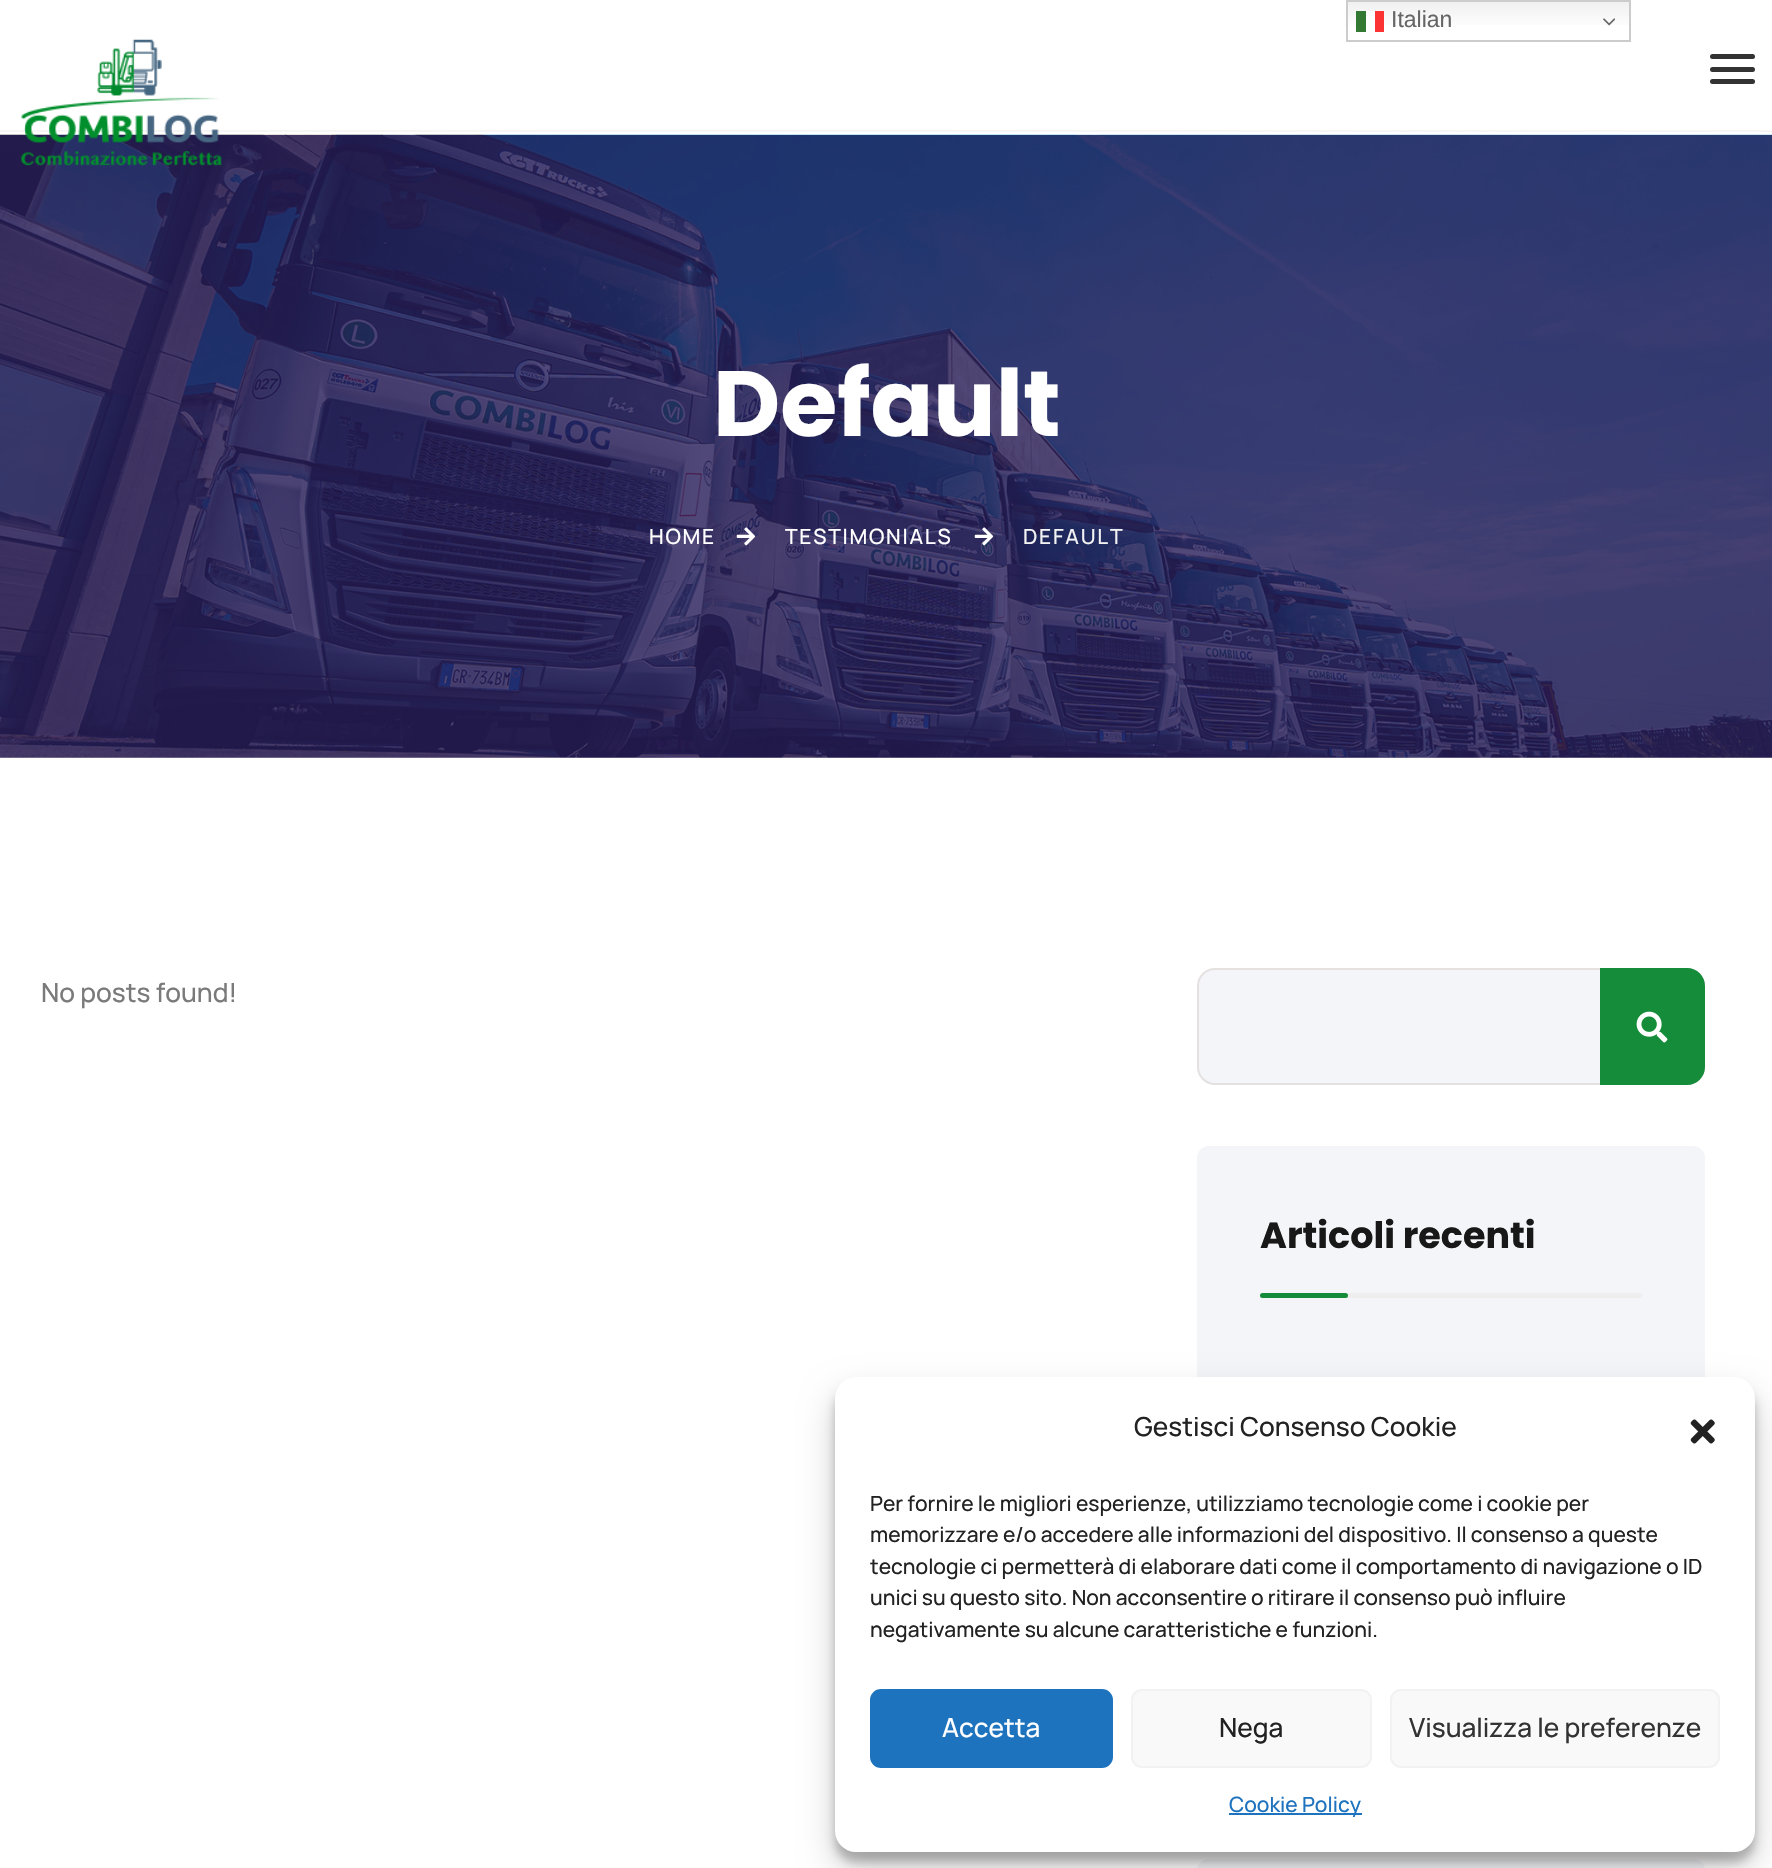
void draw(SkCanvas* canvas) {
    SkPaint paint;
    paint.setAntiAlias(true);
    auto spacedText = [&](const char* s, float x, float y, const SkFont& font, const SkPaint& ink, float letter, float word) {
        std::vector<SkGlyphID> glyphs(font.countText(s, strlen(s), SkTextEncoding::kUTF8));
        std::vector<float> xs(glyphs.size());
        font.textToGlyphs(s, strlen(s), SkTextEncoding::kUTF8, glyphs);
        font.getXPos(glyphs, xs, x);
        float extra = 0;
        for (size_t i = 0; i < glyphs.size(); i++) {
            xs[i] += extra;
            extra += letter + word * (glyphs[i] == font.unicharToGlyph(' '));
        }
        canvas->drawTextBlob(SkTextBlob::MakeFromPosHGlyphs(glyphs, xs, y, font), 0, 0, ink);
    };
    canvas->clear(0xFFFFFFFF);
    {
        const SkColor colors[] = {0xFFEFEFEF, 0xFFFFFFFF};
        const float stops[] = {0, 0.7f};
        const SkPoint ends[] = {{1488, 0}, {1488, 42}};
        paint.setShader(SkGradientShader::MakeLinear(ends, colors, stops, 2, SkTileMode::kClamp));
        paint.setAlpha(255);
    }
    canvas->drawRect(SkRect::MakeXYWH(1348, 2, 281, 23), paint);
    {
        const SkColor colors[] = {0xFFFCFCFC, 0xFFFFFFFF};
        const float stops[] = {0, 0.7f};
        const SkPoint ends[] = {{1488, 0}, {1488, 42}};
        paint.setShader(SkGradientShader::MakeLinear(ends, colors, stops, 2, SkTileMode::kClamp));
        paint.setAlpha(255);
    }
    canvas->drawRect(SkRect::MakeXYWH(1366, 11, 9, 14), paint);
    paint.setStyle(SkPaint::kStroke_Style);
    paint.setStrokeWidth(2);
    paint.setShader(nullptr);
    paint.setColor(0xFFCCCCCC);
    canvas->drawRect(SkRect::MakeXYWH(1347, 1, 283, 40), paint);
    paint.setStyle(SkPaint::kFill_Style);
    paint.setColor(0xFF337833);
    canvas->drawRect(SkRect::MakeXYWH(1356, 11, 10, 21), paint);
    paint.setColor(0xFFFC3333);
    canvas->drawRect(SkRect::MakeXYWH(1375, 11, 9, 21), paint);
    SkFont font1(fontMgr->matchFamilyStyle("Liberation Sans", SkFontStyle::Normal()), 23);
    font1.setSubpixel(true);
    paint.setColor(0xFF666666);
    canvas->drawString("Italian", 1391, 27, font1, paint);
    canvas->drawImageRect(SkImages::DeferredFromEncodedData(SkData::MakeFromFileName("img1.png")), SkRect::MakeXYWH(1603, 18, 12, 8), SkSamplingOptions());
    paint.setColor(0xFFF6F6F6);
    canvas->drawRect(SkRect::MakeXYWH(0, 130, 1772, 2), paint);
    canvas->drawImageRect(SkImages::DeferredFromEncodedData(SkData::MakeFromFileName("img3.png")), SkRect::MakeXYWH(0, 134, 1772, 624), SkSamplingOptions());
    canvas->drawImageRect(SkImages::DeferredFromEncodedData(SkData::MakeFromFileName("img2.png")), SkRect::MakeXYWH(21, 39, 202, 127), SkSamplingOptions());
    paint.setColor(0xFF333333);
    canvas->drawRoundRect(SkRect::MakeXYWH(1710, 54, 45, 5), 2.5f, 2.5f, paint);
    canvas->drawRoundRect(SkRect::MakeXYWH(1710, 67, 45, 5), 2.5f, 2.5f, paint);
    canvas->drawRoundRect(SkRect::MakeXYWH(1710, 79, 45, 5), 2.5f, 2.5f, paint);
    SkFont font2(fontMgr->matchFamilyStyle("Poppins", SkFontStyle::Bold()), 92.5f);
    font2.setSubpixel(true);
    paint.setColor(0xFFFFFFFF);
    canvas->drawString("Default", 713, 436, font2, paint);
    SkFont font3(fontMgr->matchFamilyStyle("Manrope", SkFontStyle(500, SkFontStyle::kNormal_Width, SkFontStyle::kUpright_Slant)), 21);
    font3.setSubpixel(true);
    spacedText("HOME", 649, 544, font3, paint, 1.75f, 0);
    canvas->drawImageRect(SkImages::DeferredFromEncodedData(SkData::MakeFromFileName("img4.png")), SkRect::MakeXYWH(736, 527, 20, 19), SkSamplingOptions());
    spacedText("TESTIMONIALS", 785, 544, font3, paint, 1.75f, 0);
    canvas->drawImageRect(SkImages::DeferredFromEncodedData(SkData::MakeFromFileName("img5.png")), SkRect::MakeXYWH(974, 527, 20, 19), SkSamplingOptions());
    paint.setColor(0xFFF2F2F2);
    spacedText("DEFAULT", 1023, 544, font3, paint, 1.75f, 0);
    SkFont font4(fontMgr->matchFamilyStyle("Manrope", SkFontStyle(500, SkFontStyle::kNormal_Width, SkFontStyle::kUpright_Slant)), 26.25f);
    font4.setSubpixel(true);
    paint.setColor(0xFF7A7A7A);
    canvas->drawString("No posts found!", 41, 1002, font4, paint);
    paint.setColor(0xFFF4F5F8);
    canvas->drawRoundRect(SkRect::MakeXYWH(1198, 969, 506, 115), 17, 17, paint);
    paint.setStyle(SkPaint::kStroke_Style);
    paint.setColor(0xFFE5E1E1);
    canvas->drawRoundRect(SkRect::MakeXYWH(1198, 969, 506, 115), 17, 17, paint);
    paint.setStyle(SkPaint::kFill_Style);
    paint.setColor(0xFF158C39);
    canvas->drawPath(SkPathBuilder().moveTo(1600, 968).lineTo(1687, 968).cubicTo(1697, 968, 1705, 976, 1705, 986).lineTo(1705, 1067).cubicTo(1705, 1077, 1697, 1085, 1687, 1085).lineTo(1600, 1085).close().detach(), paint);
    canvas->drawImageRect(SkImages::DeferredFromEncodedData(SkData::MakeFromFileName("img6.png")), SkRect::MakeXYWH(1636, 1011, 32, 32), SkSamplingOptions());
    paint.setColor(0xFFF4F5F8);
    canvas->drawRoundRect(SkRect::MakeXYWH(1198, 1147, 506, 247), 11, 11, paint);
    paint.setStyle(SkPaint::kStroke_Style);
    canvas->drawRoundRect(SkRect::MakeXYWH(1198, 1147, 506, 247), 11, 11, paint);
    SkFont font5(fontMgr->matchFamilyStyle("Poppins", SkFontStyle::Bold()), 36.5f);
    font5.setSubpixel(true);
    paint.setStyle(SkPaint::kFill_Style);
    paint.setColor(0xFF181818);
    canvas->drawString("Articoli recenti", 1260, 1248, font5, paint);
    paint.setColor(0xFFEEEEEE);
    canvas->drawRoundRect(SkRect::MakeXYWH(1260, 1293, 382, 5), 2.5f, 2.5f, paint);
    paint.setColor(0xFF158C39);
    canvas->drawRoundRect(SkRect::MakeXYWH(1260, 1293, 88, 5), 2.5f, 2.5f, paint);
    paint.setColor(0xFFF4F5F8);
    canvas->drawRoundRect(SkRect::MakeXYWH(1198, 1860, 506, 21), 11, 11, paint);
    paint.setStyle(SkPaint::kStroke_Style);
    canvas->drawRoundRect(SkRect::MakeXYWH(1198, 1860, 506, 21), 11, 11, paint);
    paint.setStyle(SkPaint::kFill_Style);
    paint.setColor(0x3B000000);
    paint.setMaskFilter(SkMaskFilter::MakeBlur(kNormal_SkBlurStyle, 5));
    canvas->drawRoundRect(SkRect::MakeXYWH(835, 1388, 920, 474), 21, 21, paint);
    paint.setMaskFilter(nullptr);
    paint.setColor(0x30000000);
    paint.setMaskFilter(SkMaskFilter::MakeBlur(kNormal_SkBlurStyle, 17.5f));
    canvas->drawRoundRect(SkRect::MakeXYWH(835, 1395, 920, 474), 21, 21, paint);
    paint.setMaskFilter(nullptr);
    paint.setColor(0xFFFFFFFF);
    canvas->drawRoundRect(SkRect::MakeXYWH(835, 1377, 920, 475), 21, 21, paint);
    paint.setColor(0xFF222222);
    canvas->drawString("Gestisci Consenso Cookie", 1134, 1436, font4, paint);
    canvas->drawImageRect(SkImages::DeferredFromEncodedData(SkData::MakeFromFileName("img7.png")), SkRect::MakeXYWH(1690, 1419, 25, 25), SkSamplingOptions());
    canvas->drawString("Per fornire le migliori esperienze, utilizziamo tecnologie come i cookie per", 870, 1511, font3, paint);
    canvas->drawString("memorizzare e/o accedere alle informazioni del dispositivo. Il consenso a queste", 870, 1542, font3, paint);
    canvas->drawString("tecnologie ci permetterà di elaborare dati come il comportamento di navigazione o ID", 870, 1574, font3, paint);
    canvas->drawString("unici su questo sito. Non acconsentire o ritirare il consenso può influire", 870, 1605, font3, paint);
    canvas->drawString("negativamente su alcune caratteristiche e funzioni.", 870, 1637, font3, paint);
    paint.setColor(0xFF1E73BE);
    canvas->drawRoundRect(SkRect::MakeXYWH(871, 1690, 241, 77), 10, 10, paint);
    paint.setStyle(SkPaint::kStroke_Style);
    canvas->drawRoundRect(SkRect::MakeXYWH(871, 1690, 241, 77), 10, 10, paint);
    paint.setStyle(SkPaint::kFill_Style);
    paint.setColor(0xFFFFFFFF);
    canvas->drawString("Accetta", 942, 1737, font4, paint);
    paint.setColor(0xFFF9F9F9);
    canvas->drawRoundRect(SkRect::MakeXYWH(1132, 1690, 239, 77), 10, 10, paint);
    paint.setStyle(SkPaint::kStroke_Style);
    paint.setColor(0xFFF2F2F2);
    canvas->drawRoundRect(SkRect::MakeXYWH(1132, 1690, 239, 77), 10, 10, paint);
    paint.setStyle(SkPaint::kFill_Style);
    paint.setColor(0xFF222222);
    canvas->drawString("Nega", 1219, 1737, font4, paint);
    paint.setColor(0xFFF9F9F9);
    canvas->drawRoundRect(SkRect::MakeXYWH(1391, 1690, 328, 77), 10, 10, paint);
    paint.setStyle(SkPaint::kStroke_Style);
    paint.setColor(0xFFF2F2F2);
    canvas->drawRoundRect(SkRect::MakeXYWH(1391, 1690, 328, 77), 10, 10, paint);
    paint.setStyle(SkPaint::kFill_Style);
    paint.setColor(0xFF333333);
    canvas->drawString("Visualizza le preferenze", 1409, 1737, font4, paint);
    paint.setColor(0xFF1E73BE);
    canvas->drawRect(SkRect::MakeXYWH(1229, 1813, 133, 2), paint);
    canvas->drawString("Cookie Policy", 1229, 1812, font3, paint);
}
